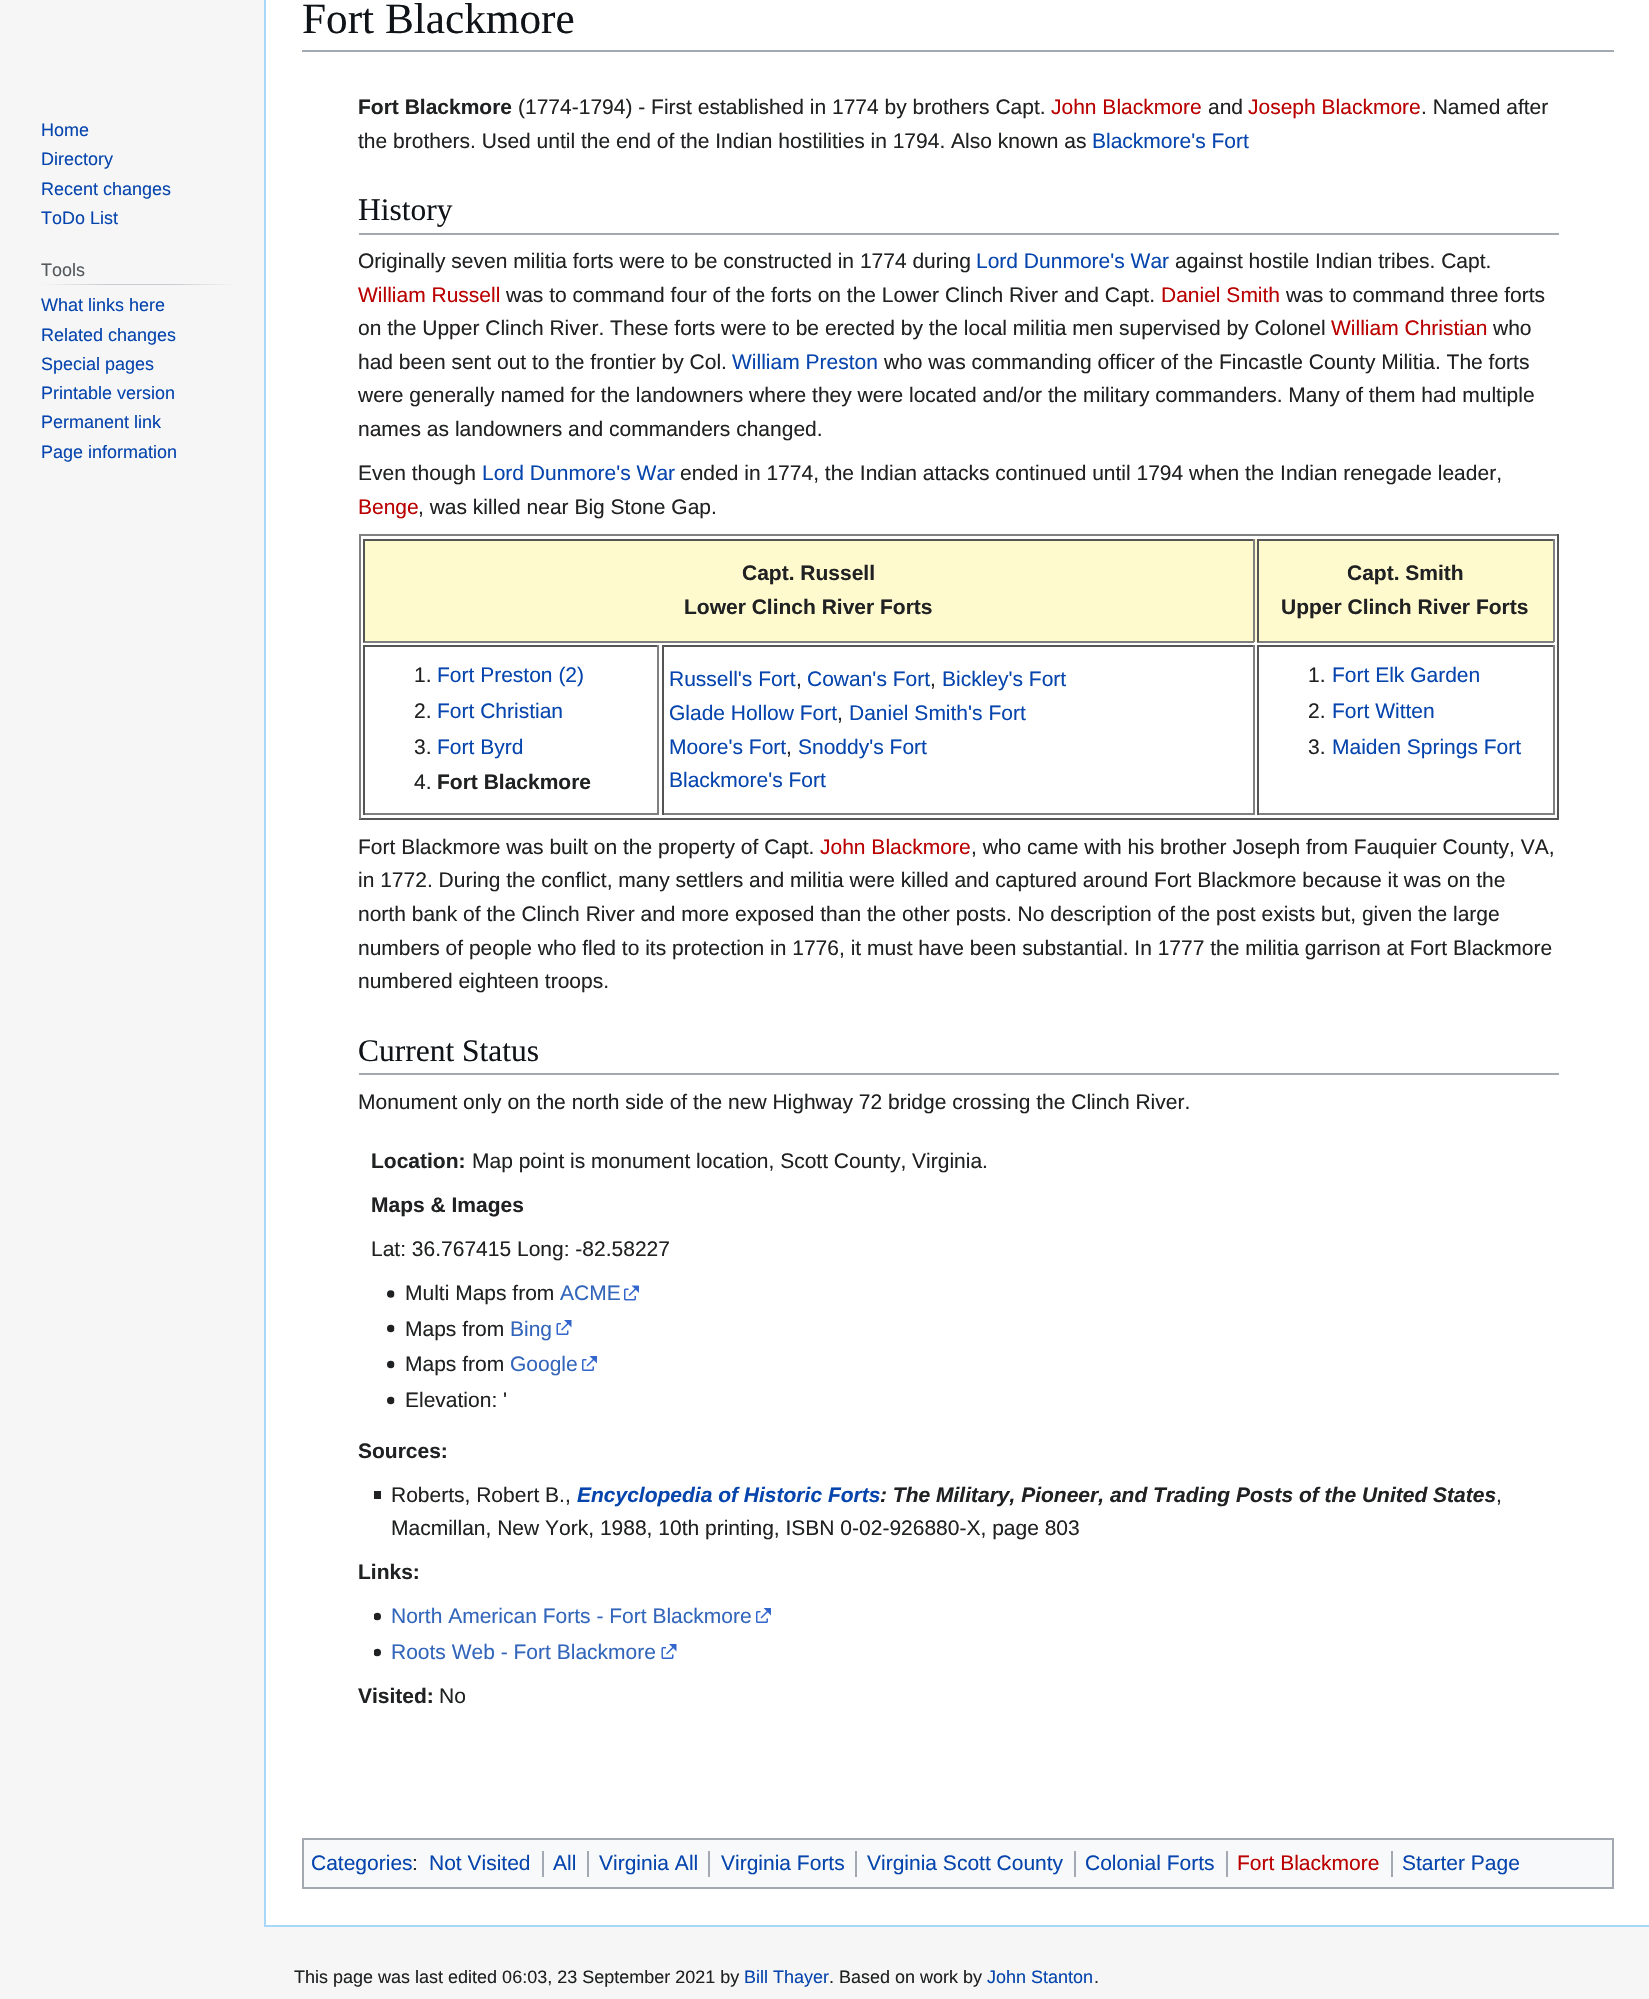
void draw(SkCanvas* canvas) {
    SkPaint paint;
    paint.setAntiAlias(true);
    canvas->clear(0xFFF6F6F6);
    SkFont font1(fontMgr->matchFamilyStyle("Liberation Sans", SkFontStyle::Normal()), 18);
    font1.setSubpixel(true);
    paint.setColor(0xFF0645AD);
    canvas->drawString("Home", 41, 136, font1, paint);
    canvas->drawString("Directory", 41, 165, font1, paint);
    canvas->drawString("Recent changes", 41, 195, font1, paint);
    canvas->drawString("ToDo List", 41, 224, font1, paint);
    {
        const SkColor colors[] = {0xFFF6F6F6, 0xFFC8CCD1, 0xFFC8CCD1, 0xFFF6F6F6};
        const float stops[] = {0, 0.33f, 0.66f, 1};
        const SkPoint ends[] = {{41, 284}, {237, 284}};
        paint.setShader(SkGradientShader::MakeLinear(ends, colors, stops, 4, SkTileMode::kClamp));
        paint.setAlpha(255);
    }
    canvas->drawRect(SkRect::MakeXYWH(41, 284, 196, 1), paint);
    paint.setShader(nullptr);
    paint.setColor(0xFF54595D);
    canvas->drawString("Tools", 41, 276, font1, paint);
    paint.setColor(0xFF0645AD);
    canvas->drawString("What links here", 41, 311, font1, paint);
    canvas->drawString("Related changes", 41, 341, font1, paint);
    canvas->drawString("Special pages", 41, 370, font1, paint);
    canvas->drawString("Printable version", 41, 399, font1, paint);
    canvas->drawString("Permanent link", 41, 428, font1, paint);
    canvas->drawString("Page information", 41, 458, font1, paint);
    paint.setColor(0xFFFFFFFF);
    canvas->drawRect(SkRect::MakeXYWH(266, 0, 1383, 1925), paint);
    paint.setColor(0xFFA7D7F9);
    canvas->drawRect(SkRect::MakeXYWH(264, 1925, 1385, 2), paint);
    canvas->drawRect(SkRect::MakeXYWH(264, 0, 2, 1926), paint);
    paint.setColor(0xFFA2A9B1);
    canvas->drawRect(SkRect::MakeXYWH(302, 50, 1312, 2), paint);
    SkFont font2(fontMgr->matchFamilyStyle("Liberation Serif", SkFontStyle::Normal()), 43.25f);
    font2.setSubpixel(true);
    paint.setColor(0xFF101418);
    canvas->drawString("Fort Blackmore", 302, 33, font2, paint);
    SkFont font3(fontMgr->matchFamilyStyle("Liberation Sans", SkFontStyle::Bold()), 21);
    font3.setSubpixel(true);
    paint.setColor(0xFF202122);
    canvas->drawString("Fort Blackmore", 358, 114, font3, paint);
    SkFont font4(fontMgr->matchFamilyStyle("Liberation Sans", SkFontStyle::Normal()), 21);
    font4.setSubpixel(true);
    canvas->drawString("(1774-1794) - First established in 1774 by brothers Capt.", 518, 114, font4, paint);
    paint.setColor(0xFFBA0000);
    canvas->drawString("John Blackmore", 1051, 114, font4, paint);
    paint.setColor(0xFF202122);
    canvas->drawString("and", 1208, 114, font4, paint);
    paint.setColor(0xFFBA0000);
    canvas->drawString("Joseph Blackmore", 1248, 114, font4, paint);
    paint.setColor(0xFF202122);
    canvas->drawString(". Named after", 1421, 114, font4, paint);
    canvas->drawString("the brothers. Used until the end of the Indian hostilities in 1794. Also known as", 358, 148, font4, paint);
    paint.setColor(0xFF0645AD);
    canvas->drawString("Blackmore's Fort", 1092, 148, font4, paint);
    paint.setColor(0xFFA2A9B1);
    canvas->drawRect(SkRect::MakeXYWH(359, 233, 1200, 2), paint);
    SkFont font5(fontMgr->matchFamilyStyle("Liberation Serif", SkFontStyle::Normal()), 31.5f);
    font5.setSubpixel(true);
    paint.setColor(0xFF101418);
    canvas->drawString("History", 358, 220, font5, paint);
    paint.setColor(0xFF202122);
    canvas->drawString("Originally seven militia forts were to be constructed in 1774 during", 358, 268, font4, paint);
    paint.setColor(0xFF0645AD);
    canvas->drawString("Lord Dunmore's War", 976, 268, font4, paint);
    paint.setColor(0xFF202122);
    canvas->drawString("against hostile Indian tribes. Capt.", 1175, 268, font4, paint);
    paint.setColor(0xFFBA0000);
    canvas->drawString("William Russell", 358, 302, font4, paint);
    paint.setColor(0xFF202122);
    canvas->drawString("was to command four of the forts on the Lower Clinch River and Capt.", 506, 302, font4, paint);
    paint.setColor(0xFFBA0000);
    canvas->drawString("Daniel Smith", 1161, 302, font4, paint);
    paint.setColor(0xFF202122);
    canvas->drawString("was to command three forts", 1286, 302, font4, paint);
    canvas->drawString("on the Upper Clinch River. These forts were to be erected by the local militia men supervised by Colonel", 358, 335, font4, paint);
    paint.setColor(0xFFBA0000);
    canvas->drawString("William Christian", 1331, 335, font4, paint);
    paint.setColor(0xFF202122);
    canvas->drawString("who", 1493, 335, font4, paint);
    canvas->drawString("had been sent out to the frontier by Col.", 358, 369, font4, paint);
    paint.setColor(0xFF0645AD);
    canvas->drawString("William Preston", 732, 369, font4, paint);
    paint.setColor(0xFF202122);
    canvas->drawString("who was commanding officer of the Fincastle County Militia. The forts", 884, 369, font4, paint);
    canvas->drawString("were generally named for the landowners where they were located and/or the military commanders. Many of them had multiple", 358, 402, font4, paint);
    canvas->drawString("names as landowners and commanders changed.", 358, 436, font4, paint);
    canvas->drawString("Even though", 358, 480, font4, paint);
    paint.setColor(0xFF0645AD);
    canvas->drawString("Lord Dunmore's War", 482, 480, font4, paint);
    paint.setColor(0xFF202122);
    canvas->drawString("ended in 1774, the Indian attacks continued until 1794 when the Indian renegade leader,", 680, 480, font4, paint);
    paint.setColor(0xFFBA0000);
    canvas->drawString("Benge", 358, 514, font4, paint);
    paint.setColor(0xFF202122);
    canvas->drawString(", was killed near Big Stone Gap.", 418, 514, font4, paint);
    paint.setColor(0xFF808080);
    canvas->drawRect(SkRect::MakeXYWH(359, 534, 1200, 2), paint);
    paint.setColor(0xFF555555);
    canvas->drawRect(SkRect::MakeXYWH(1557, 534, 2, 285), paint);
    canvas->drawRect(SkRect::MakeXYWH(359, 818, 1200, 2), paint);
    paint.setColor(0xFF808080);
    canvas->drawRect(SkRect::MakeXYWH(359, 534, 2, 285), paint);
    paint.setColor(0xFFFFFACD);
    canvas->drawRect(SkRect::MakeXYWH(365, 539, 1188, 103), paint);
    paint.setColor(0xFF555555);
    canvas->drawRect(SkRect::MakeXYWH(363, 539, 891, 2), paint);
    paint.setColor(0xFF808080);
    canvas->drawRect(SkRect::MakeXYWH(1253, 539, 2, 103), paint);
    canvas->drawRect(SkRect::MakeXYWH(363, 641, 891, 2), paint);
    paint.setColor(0xFF555555);
    canvas->drawRect(SkRect::MakeXYWH(363, 539, 2, 103), paint);
    paint.setColor(0xFF202122);
    canvas->drawString("Capt. Russell", 742, 580, font3, paint);
    canvas->drawString("Lower Clinch River Forts", 684, 614, font3, paint);
    paint.setColor(0xFF555555);
    canvas->drawRect(SkRect::MakeXYWH(1257, 539, 297, 2), paint);
    paint.setColor(0xFF808080);
    canvas->drawRect(SkRect::MakeXYWH(1553, 539, 2, 103), paint);
    canvas->drawRect(SkRect::MakeXYWH(1257, 641, 297, 2), paint);
    paint.setColor(0xFF555555);
    canvas->drawRect(SkRect::MakeXYWH(1257, 539, 2, 103), paint);
    paint.setColor(0xFF202122);
    canvas->drawString("Capt. Smith", 1347, 580, font3, paint);
    canvas->drawString("Upper Clinch River Forts", 1281, 614, font3, paint);
    paint.setColor(0xFF555555);
    canvas->drawRect(SkRect::MakeXYWH(363, 645, 296, 2), paint);
    paint.setColor(0xFF808080);
    canvas->drawRect(SkRect::MakeXYWH(657, 645, 2, 170), paint);
    canvas->drawRect(SkRect::MakeXYWH(363, 813, 296, 2), paint);
    paint.setColor(0xFF555555);
    canvas->drawRect(SkRect::MakeXYWH(363, 645, 2, 170), paint);
    paint.setColor(0xFF202122);
    canvas->drawString("1.", 414, 682, font4, paint);
    paint.setColor(0xFF0645AD);
    canvas->drawString("Fort Preston (2)", 437, 682, font4, paint);
    paint.setColor(0xFF202122);
    canvas->drawString("2.", 414, 718, font4, paint);
    paint.setColor(0xFF0645AD);
    canvas->drawString("Fort Christian", 437, 718, font4, paint);
    paint.setColor(0xFF202122);
    canvas->drawString("3.", 414, 754, font4, paint);
    paint.setColor(0xFF0645AD);
    canvas->drawString("Fort Byrd", 437, 754, font4, paint);
    paint.setColor(0xFF202122);
    canvas->drawString("4.", 414, 789, font4, paint);
    canvas->drawString("Fort Blackmore", 437, 789, font3, paint);
    paint.setColor(0xFF555555);
    canvas->drawRect(SkRect::MakeXYWH(662, 645, 592, 2), paint);
    paint.setColor(0xFF808080);
    canvas->drawRect(SkRect::MakeXYWH(1253, 645, 2, 170), paint);
    canvas->drawRect(SkRect::MakeXYWH(662, 813, 592, 2), paint);
    paint.setColor(0xFF555555);
    canvas->drawRect(SkRect::MakeXYWH(662, 645, 2, 170), paint);
    paint.setColor(0xFF0645AD);
    canvas->drawString("Russell's Fort", 669, 686, font4, paint);
    paint.setColor(0xFF202122);
    canvas->drawString(",", 796, 686, font4, paint);
    paint.setColor(0xFF0645AD);
    canvas->drawString("Cowan's Fort", 807, 686, font4, paint);
    paint.setColor(0xFF202122);
    canvas->drawString(",", 930, 686, font4, paint);
    paint.setColor(0xFF0645AD);
    canvas->drawString("Bickley's Fort", 942, 686, font4, paint);
    canvas->drawString("Glade Hollow Fort", 669, 720, font4, paint);
    paint.setColor(0xFF202122);
    canvas->drawString(",", 837, 720, font4, paint);
    paint.setColor(0xFF0645AD);
    canvas->drawString("Daniel Smith's Fort", 849, 720, font4, paint);
    canvas->drawString("Moore's Fort", 669, 754, font4, paint);
    paint.setColor(0xFF202122);
    canvas->drawString(",", 786, 754, font4, paint);
    paint.setColor(0xFF0645AD);
    canvas->drawString("Snoddy's Fort", 798, 754, font4, paint);
    canvas->drawString("Blackmore's Fort", 669, 787, font4, paint);
    paint.setColor(0xFF555555);
    canvas->drawRect(SkRect::MakeXYWH(1257, 645, 297, 2), paint);
    paint.setColor(0xFF808080);
    canvas->drawRect(SkRect::MakeXYWH(1553, 645, 2, 170), paint);
    canvas->drawRect(SkRect::MakeXYWH(1257, 813, 297, 2), paint);
    paint.setColor(0xFF555555);
    canvas->drawRect(SkRect::MakeXYWH(1257, 645, 2, 170), paint);
    paint.setColor(0xFF202122);
    canvas->drawString("1.", 1308, 682, font4, paint);
    paint.setColor(0xFF0645AD);
    canvas->drawString("Fort Elk Garden", 1332, 682, font4, paint);
    paint.setColor(0xFF202122);
    canvas->drawString("2.", 1308, 718, font4, paint);
    paint.setColor(0xFF0645AD);
    canvas->drawString("Fort Witten", 1332, 718, font4, paint);
    paint.setColor(0xFF202122);
    canvas->drawString("3.", 1308, 754, font4, paint);
    paint.setColor(0xFF0645AD);
    canvas->drawString("Maiden Springs Fort", 1332, 754, font4, paint);
    paint.setColor(0xFF202122);
    canvas->drawString("Fort Blackmore was built on the property of Capt.", 358, 854, font4, paint);
    paint.setColor(0xFFBA0000);
    canvas->drawString("John Blackmore", 820, 854, font4, paint);
    paint.setColor(0xFF202122);
    canvas->drawString(", who came with his brother Joseph from Fauquier County, VA,", 971, 854, font4, paint);
    canvas->drawString("in 1772. During the conflict, many settlers and militia were killed and captured around Fort Blackmore because it was on the", 358, 887, font4, paint);
    canvas->drawString("north bank of the Clinch River and more exposed than the other posts. No description of the post exists but, given the large", 358, 921, font4, paint);
    canvas->drawString("numbers of people who fled to its protection in 1776, it must have been substantial. In 1777 the militia garrison at Fort Blackmore", 358, 955, font4, paint);
    canvas->drawString("numbered eighteen troops.", 358, 988, font4, paint);
    paint.setColor(0xFFA2A9B1);
    canvas->drawRect(SkRect::MakeXYWH(359, 1073, 1200, 2), paint);
    paint.setColor(0xFF101418);
    canvas->drawString("Current Status", 358, 1061, font5, paint);
    paint.setColor(0xFF202122);
    canvas->drawString("Monument only on the north side of the new Highway 72 bridge crossing the Clinch River.", 358, 1109, font4, paint);
    canvas->drawString("Location:", 371, 1168, font3, paint);
    canvas->drawString("Map point is monument location, Scott County, Virginia.", 472, 1168, font4, paint);
    canvas->drawString("Maps & Images", 371, 1212, font3, paint);
    canvas->drawString("Lat: 36.767415 Long: -82.58227", 371, 1256, font4, paint);
    canvas->drawImageRect(SkImages::DeferredFromEncodedData(SkData::MakeFromFileName("img1.png")), SkRect::MakeXYWH(387, 1290, 8, 8), SkSamplingOptions());
    canvas->drawString("Multi Maps from", 405, 1300, font4, paint);
    paint.setColor(0xFF3366BB);
    canvas->drawString("ACME", 560, 1300, font4, paint);
    canvas->drawImageRect(SkImages::DeferredFromEncodedData(SkData::MakeFromFileName("img2.png")), SkRect::MakeXYWH(624, 1285, 15, 16), SkSamplingOptions());
    canvas->drawImageRect(SkImages::DeferredFromEncodedData(SkData::MakeFromFileName("img3.png")), SkRect::MakeXYWH(387, 1324, 8, 9), SkSamplingOptions());
    paint.setColor(0xFF202122);
    canvas->drawString("Maps from", 405, 1336, font4, paint);
    paint.setColor(0xFF3366BB);
    canvas->drawString("Bing", 510, 1336, font4, paint);
    canvas->drawImageRect(SkImages::DeferredFromEncodedData(SkData::MakeFromFileName("img4.png")), SkRect::MakeXYWH(556, 1320, 16, 15), SkSamplingOptions());
    canvas->drawImageRect(SkImages::DeferredFromEncodedData(SkData::MakeFromFileName("img5.png")), SkRect::MakeXYWH(387, 1360, 8, 9), SkSamplingOptions());
    paint.setColor(0xFF202122);
    canvas->drawString("Maps from", 405, 1371, font4, paint);
    paint.setColor(0xFF3366BB);
    canvas->drawString("Google", 510, 1371, font4, paint);
    canvas->drawImageRect(SkImages::DeferredFromEncodedData(SkData::MakeFromFileName("img6.png")), SkRect::MakeXYWH(582, 1356, 15, 15), SkSamplingOptions());
    canvas->drawImageRect(SkImages::DeferredFromEncodedData(SkData::MakeFromFileName("img3.png")), SkRect::MakeXYWH(387, 1396, 8, 9), SkSamplingOptions());
    paint.setColor(0xFF202122);
    canvas->drawString("Elevation: '", 405, 1407, font4, paint);
    canvas->drawString("Sources:", 358, 1458, font3, paint);
    canvas->drawRect(SkRect::MakeXYWH(374, 1491, 7, 8), paint);
    canvas->drawString("Roberts, Robert B.,", 391, 1502, font4, paint);
    SkFont font6(fontMgr->matchFamilyStyle("Liberation Sans", SkFontStyle::BoldItalic()), 21);
    font6.setSubpixel(true);
    paint.setColor(0xFF0645AD);
    canvas->drawString("Encyclopedia of Historic Forts", 577, 1502, font6, paint);
    paint.setColor(0xFF202122);
    canvas->drawString(": The Military, Pioneer, and Trading Posts of the United States", 880, 1502, font6, paint);
    canvas->drawString(",", 1496, 1502, font4, paint);
    canvas->drawString("Macmillan, New York, 1988, 10th printing, ISBN 0-02-926880-X, page 803", 391, 1535, font4, paint);
    canvas->drawString("Links:", 358, 1579, font3, paint);
    canvas->drawImageRect(SkImages::DeferredFromEncodedData(SkData::MakeFromFileName("img7.png")), SkRect::MakeXYWH(374, 1612, 7, 9), SkSamplingOptions());
    paint.setColor(0xFF3366BB);
    canvas->drawString("North American Forts - Fort Blackmore", 391, 1623, font4, paint);
    canvas->drawImageRect(SkImages::DeferredFromEncodedData(SkData::MakeFromFileName("img6.png")), SkRect::MakeXYWH(756, 1608, 15, 15), SkSamplingOptions());
    canvas->drawImageRect(SkImages::DeferredFromEncodedData(SkData::MakeFromFileName("img8.png")), SkRect::MakeXYWH(374, 1648, 7, 9), SkSamplingOptions());
    canvas->drawString("Roots Web - Fort Blackmore", 391, 1659, font4, paint);
    canvas->drawImageRect(SkImages::DeferredFromEncodedData(SkData::MakeFromFileName("img4.png")), SkRect::MakeXYWH(661, 1644, 16, 15), SkSamplingOptions());
    paint.setColor(0xFF202122);
    canvas->drawString("Visited:", 358, 1703, font3, paint);
    canvas->drawString("No", 439, 1703, font4, paint);
    paint.setColor(0xFFF8F9FA);
    canvas->drawRect(SkRect::MakeXYWH(303, 1839, 1310, 49), paint);
    paint.setStyle(SkPaint::kStroke_Style);
    paint.setStrokeWidth(2);
    paint.setColor(0xFFA2A9B1);
    canvas->drawRect(SkRect::MakeXYWH(303, 1839, 1310, 49), paint);
    paint.setStyle(SkPaint::kFill_Style);
    paint.setColor(0xFF0645AD);
    canvas->drawString("Categories", 311, 1870, font4, paint);
    paint.setColor(0xFF202122);
    canvas->drawString(":", 412, 1870, font4, paint);
    paint.setColor(0xFF0645AD);
    canvas->drawString("Not Visited", 429, 1870, font4, paint);
    paint.setColor(0xFFA2A9B1);
    canvas->drawRect(SkRect::MakeXYWH(542, 1851, 2, 26), paint);
    paint.setColor(0xFF0645AD);
    canvas->drawString("All", 553, 1870, font4, paint);
    paint.setColor(0xFFA2A9B1);
    canvas->drawRect(SkRect::MakeXYWH(587, 1851, 2, 26), paint);
    paint.setColor(0xFF0645AD);
    canvas->drawString("Virginia All", 599, 1870, font4, paint);
    paint.setColor(0xFFA2A9B1);
    canvas->drawRect(SkRect::MakeXYWH(708, 1851, 2, 26), paint);
    paint.setColor(0xFF0645AD);
    canvas->drawString("Virginia Forts", 721, 1870, font4, paint);
    paint.setColor(0xFFA2A9B1);
    canvas->drawRect(SkRect::MakeXYWH(855, 1851, 2, 26), paint);
    paint.setColor(0xFF0645AD);
    canvas->drawString("Virginia Scott County", 867, 1870, font4, paint);
    paint.setColor(0xFFA2A9B1);
    canvas->drawRect(SkRect::MakeXYWH(1074, 1851, 2, 26), paint);
    paint.setColor(0xFF0645AD);
    canvas->drawString("Colonial Forts", 1085, 1870, font4, paint);
    paint.setColor(0xFFA2A9B1);
    canvas->drawRect(SkRect::MakeXYWH(1226, 1851, 2, 26), paint);
    paint.setColor(0xFFBA0000);
    canvas->drawString("Fort Blackmore", 1237, 1870, font4, paint);
    paint.setColor(0xFFA2A9B1);
    canvas->drawRect(SkRect::MakeXYWH(1391, 1851, 2, 26), paint);
    paint.setColor(0xFF0645AD);
    canvas->drawString("Starter Page", 1402, 1870, font4, paint);
    paint.setColor(0xFF202122);
    canvas->drawString("This page was last edited 06:03, 23 September 2021 by", 294, 1983, font1, paint);
    paint.setColor(0xFF0645AD);
    canvas->drawString("Bill Thayer", 744, 1983, font1, paint);
    paint.setColor(0xFF202122);
    canvas->drawString(". Based on work by", 829, 1983, font1, paint);
    paint.setColor(0xFF0645AD);
    canvas->drawString("John Stanton", 987, 1983, font1, paint);
    paint.setColor(0xFF202122);
    canvas->drawString(".", 1094, 1983, font1, paint);
}
